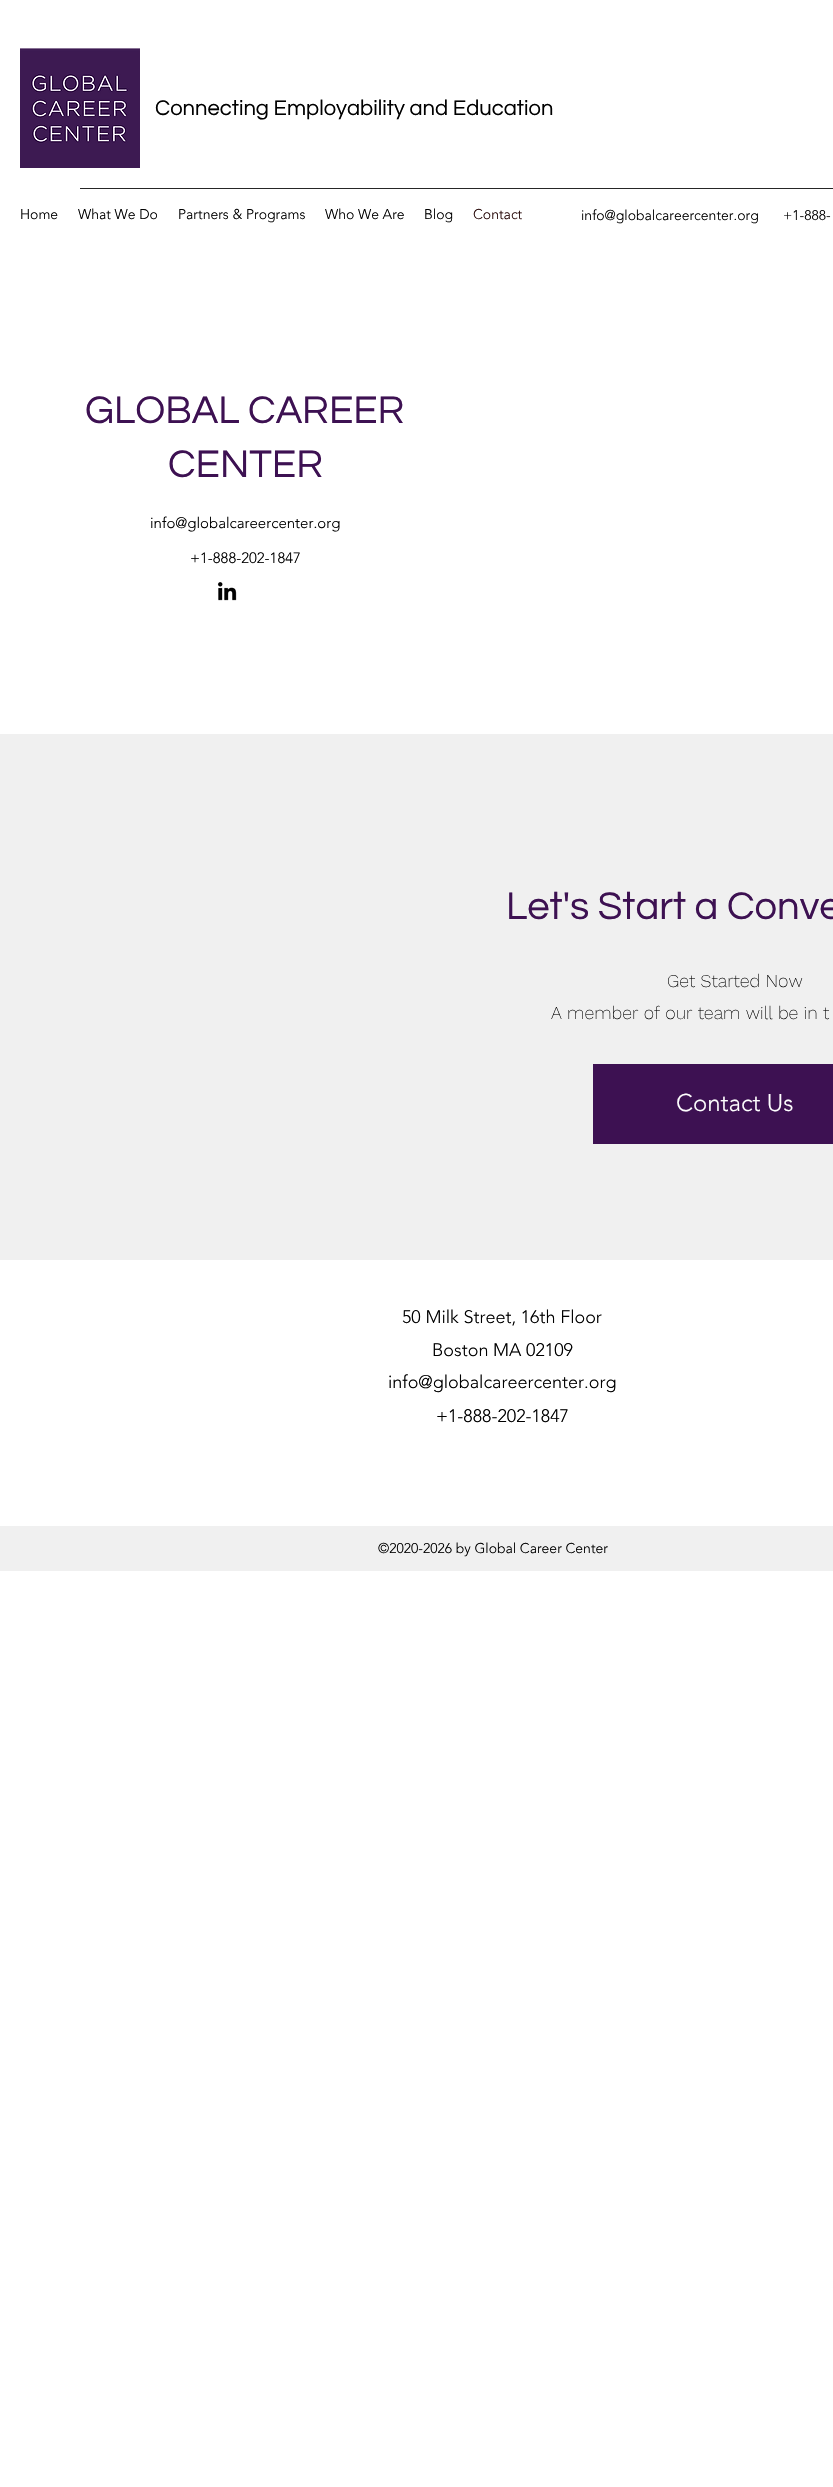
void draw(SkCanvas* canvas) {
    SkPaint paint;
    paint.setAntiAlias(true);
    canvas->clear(0xFFFFFFFF);
    canvas->drawImageRect(SkImages::DeferredFromEncodedData(SkData::MakeFromFileName("img1.png")), SkRect::MakeXYWH(20, 48, 120, 120), SkSamplingOptions());
    SkFont font1(fontMgr->matchFamilyStyle("Questrial", SkFontStyle::Normal()), 22);
    font1.setSubpixel(true);
    paint.setColor(0xFF000000);
    canvas->drawString("Connecting Employability and Education", 155, 115, font1, paint);
    paint.setColor(0xFF262626);
    canvas->drawRect(SkRect::MakeXYWH(80, 188, 753, 1), paint);
    SkFont font2(fontMgr->matchFamilyStyle("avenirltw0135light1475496", SkFontStyle(300, SkFontStyle::kNormal_Width, SkFontStyle::kUpright_Slant)), 14);
    font2.setSubpixel(true);
    paint.setColor(0xFF000000);
    canvas->drawString("Home", 20, 219, font2, paint);
    canvas->drawString("What We Do", 78, 219, font2, paint);
    canvas->drawString("Partners & Programs", 178, 219, font2, paint);
    canvas->drawString("Who We Are", 325, 219, font2, paint);
    canvas->drawString("Blog", 424, 219, font2, paint);
    paint.setColor(0xFF250606);
    canvas->drawString("Contact", 473, 219, font2, paint);
    paint.setColor(0xFF000000);
    canvas->drawString("info@globalcareercenter.org", 581, 220, font2, paint);
    canvas->drawString("+1-888-", 783, 220, font2, paint);
    SkFont font3(fontMgr->matchFamilyStyle("Questrial", SkFontStyle::Normal()), 40);
    font3.setSubpixel(true);
    paint.setColor(0xFF3D1152);
    canvas->drawString("GLOBAL CAREER", 85, 423, font3, paint);
    canvas->drawString("CENTER", 168, 477, font3, paint);
    SkFont font4(fontMgr->matchFamilyStyle("avenirltw0135light1475496", SkFontStyle(300, SkFontStyle::kNormal_Width, SkFontStyle::kUpright_Slant)), 15);
    font4.setSubpixel(true);
    paint.setColor(0xFF000000);
    canvas->drawString("info@globalcareercenter.org", 150, 528, font4, paint);
    canvas->drawString("+1-888-202-1847", 190, 563, font4, paint);
    canvas->drawImageRect(SkImages::DeferredFromEncodedData(SkData::MakeFromFileName("img2.png")), SkRect::MakeXYWH(217, 582, 20, 19), SkSamplingOptions());
    paint.setColor(0xFFF0F0F0);
    canvas->drawRect(SkRect::MakeXYWH(0, 734, 833, 526), paint);
    paint.setColor(0xFF3D1152);
    canvas->drawString("Let's Start a Conve", 506, 919, font3, paint);
    SkFont font5(fontMgr->matchFamilyStyle("Work Sans", SkFontStyle(200, SkFontStyle::kNormal_Width, SkFontStyle::kUpright_Slant)), 18);
    font5.setSubpixel(true);
    paint.setColor(0xFF000000);
    canvas->drawString("Get Started Now", 667, 987, font5, paint);
    canvas->drawString("A member of our team will be in t", 551, 1019, font5, paint);
    paint.setColor(0xFF3D1152);
    canvas->drawRect(SkRect::MakeXYWH(593, 1064, 240, 80), paint);
    SkFont font6(fontMgr->matchFamilyStyle("avenirltw0135light1475496", SkFontStyle(300, SkFontStyle::kNormal_Width, SkFontStyle::kUpright_Slant)), 24);
    font6.setSubpixel(true);
    paint.setColor(0xFFFFFFFF);
    canvas->drawString("Contact Us", 676, 1111, font6, paint);
    SkFont font7(fontMgr->matchFamilyStyle("avenirltw0135light1475496", SkFontStyle(300, SkFontStyle::kNormal_Width, SkFontStyle::kUpright_Slant)), 18);
    font7.setSubpixel(true);
    paint.setColor(0xFF000000);
    canvas->drawString("50 Milk Street, 16th Floor", 402, 1323, font7, paint);
    canvas->drawString("Boston MA 02109", 432, 1356, font7, paint);
    canvas->drawString("info@globalcareercenter.org", 388, 1388, font7, paint);
    canvas->drawString("+1-888-202-1847", 436, 1422, font7, paint);
    paint.setColor(0xFFF0F0F0);
    canvas->drawRect(SkRect::MakeXYWH(0, 1526, 833, 45), paint);
    paint.setColor(0xFF000000);
    canvas->drawString("©2020-2026 by Global Career Center", 378, 1553, font2, paint);
}
